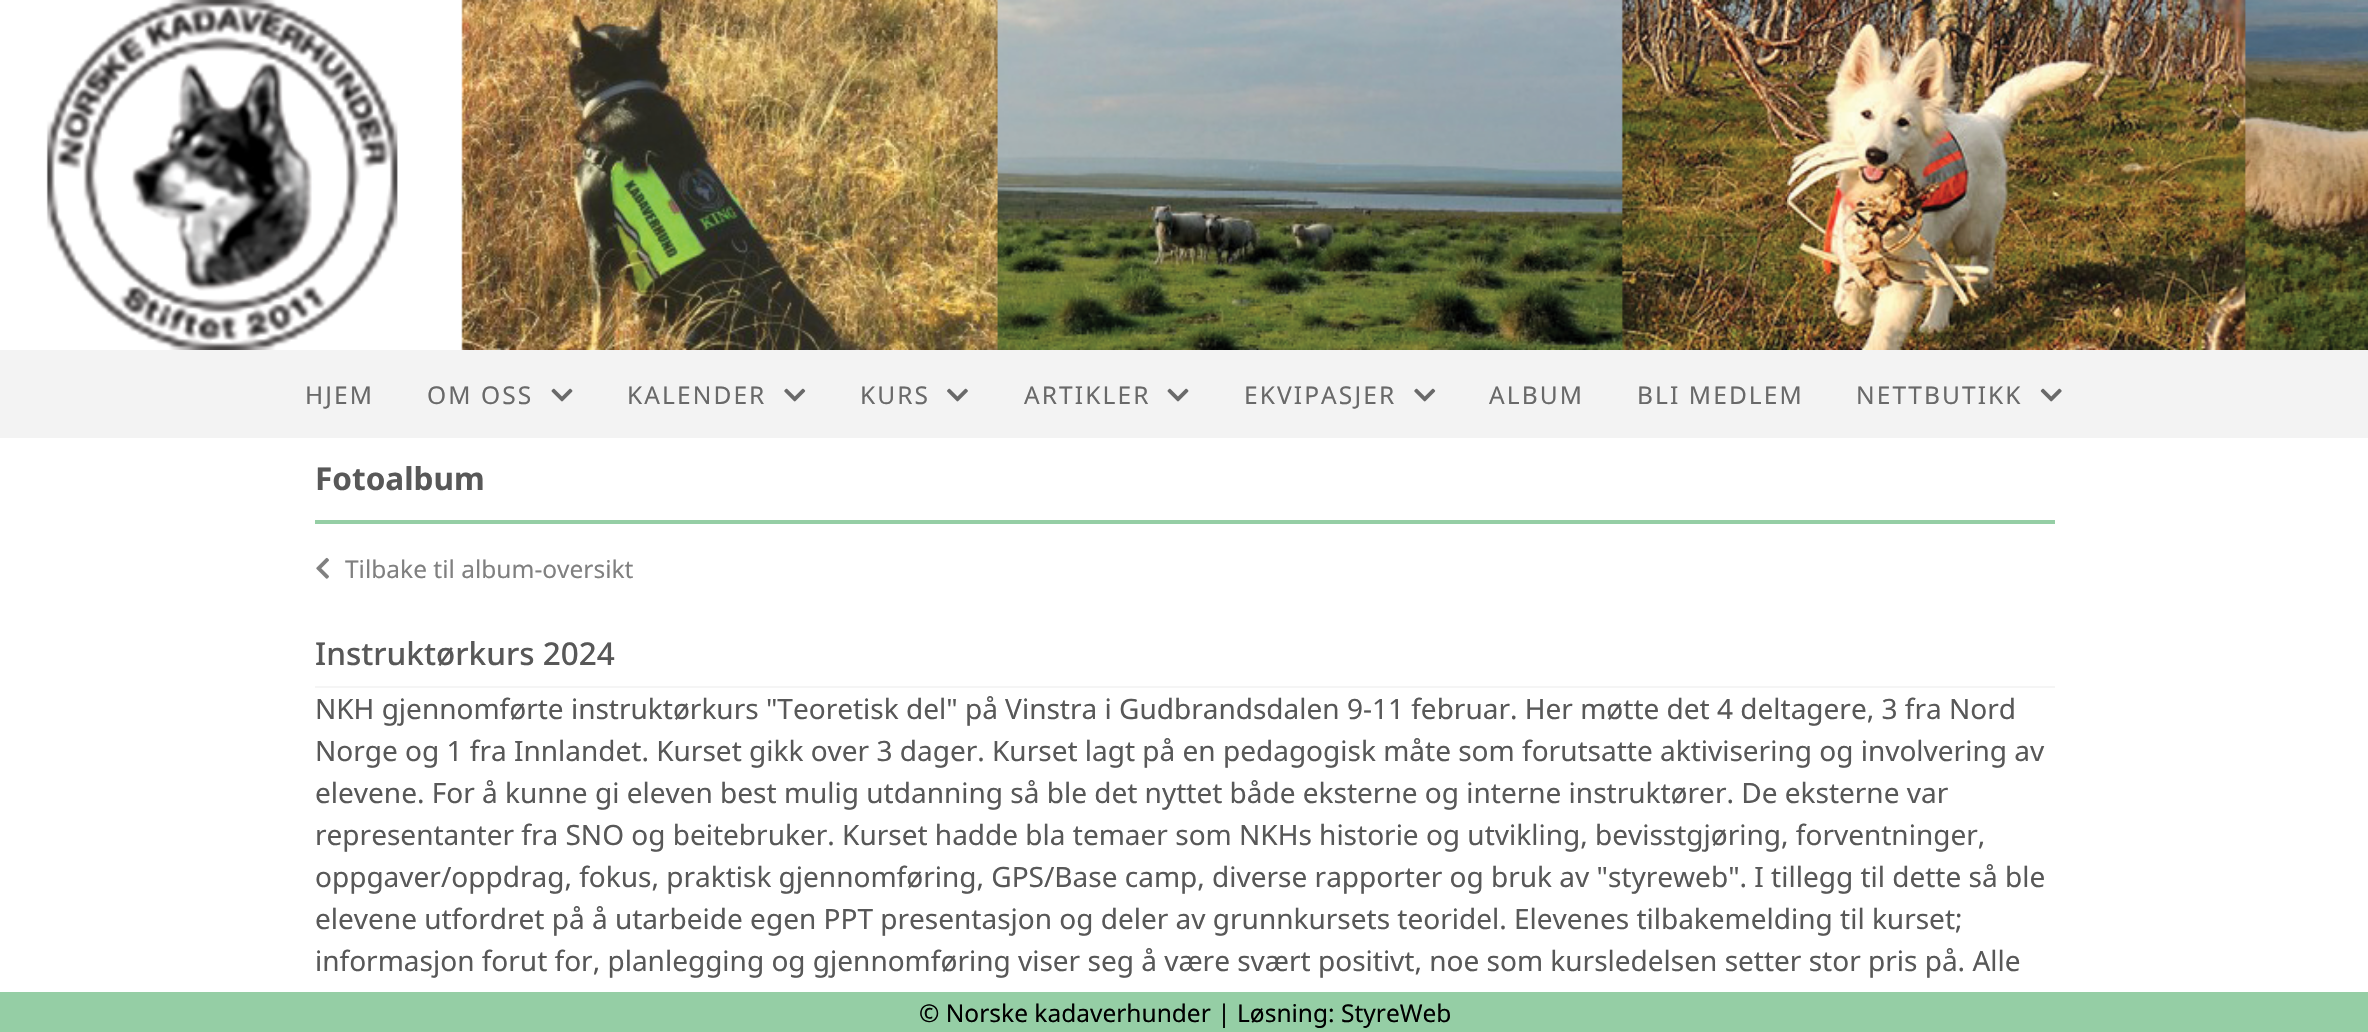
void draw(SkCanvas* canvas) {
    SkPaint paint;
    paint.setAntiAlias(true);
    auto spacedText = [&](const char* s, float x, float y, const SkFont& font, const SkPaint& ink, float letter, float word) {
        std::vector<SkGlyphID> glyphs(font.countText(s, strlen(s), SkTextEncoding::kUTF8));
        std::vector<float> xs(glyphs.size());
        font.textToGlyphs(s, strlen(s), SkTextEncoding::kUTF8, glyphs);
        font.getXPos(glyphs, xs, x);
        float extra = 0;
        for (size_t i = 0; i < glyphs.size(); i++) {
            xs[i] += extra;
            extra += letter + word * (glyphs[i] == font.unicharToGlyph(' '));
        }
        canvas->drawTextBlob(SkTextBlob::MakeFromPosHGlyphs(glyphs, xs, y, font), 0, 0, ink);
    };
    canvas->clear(0xFFFFFFFF);
    canvas->drawImageRect(SkImages::DeferredFromEncodedData(SkData::MakeFromFileName("img1.png")), SkRect::MakeXYWH(46, 0, 2322, 350), SkSamplingOptions());
    paint.setColor(0xFFF3F3F3);
    canvas->drawRect(SkRect::MakeXYWH(0, 350, 2368, 88), paint);
    SkFont font1(fontMgr->matchFamilyStyle("Noto Sans", SkFontStyle::Normal()), 24.5f);
    font1.setSubpixel(true);
    paint.setColor(0xFF696969);
    spacedText("HJEM", 305, 404, font1, paint, 2.1f, 0);
    spacedText("OM OSS", 427, 404, font1, paint, 2.1f, 0);
    canvas->drawImageRect(SkImages::DeferredFromEncodedData(SkData::MakeFromFileName("img2.png")), SkRect::MakeXYWH(551, 388, 22, 14), SkSamplingOptions());
    spacedText("KALENDER", 627, 404, font1, paint, 2.1f, 0);
    canvas->drawImageRect(SkImages::DeferredFromEncodedData(SkData::MakeFromFileName("img3.png")), SkRect::MakeXYWH(784, 388, 22, 14), SkSamplingOptions());
    spacedText("KURS", 860, 404, font1, paint, 2.1f, 0);
    canvas->drawImageRect(SkImages::DeferredFromEncodedData(SkData::MakeFromFileName("img4.png")), SkRect::MakeXYWH(947, 388, 21, 14), SkSamplingOptions());
    spacedText("ARTIKLER", 1024, 404, font1, paint, 2.1f, 0);
    canvas->drawImageRect(SkImages::DeferredFromEncodedData(SkData::MakeFromFileName("img2.png")), SkRect::MakeXYWH(1167, 388, 22, 14), SkSamplingOptions());
    spacedText("EKVIPASJER", 1244, 404, font1, paint, 2.1f, 0);
    canvas->drawImageRect(SkImages::DeferredFromEncodedData(SkData::MakeFromFileName("img3.png")), SkRect::MakeXYWH(1414, 388, 22, 14), SkSamplingOptions());
    spacedText("ALBUM", 1489, 404, font1, paint, 2.1f, 0);
    spacedText("BLI MEDLEM", 1637, 404, font1, paint, 2.1f, 0);
    spacedText("NETTBUTIKK", 1856, 404, font1, paint, 2.1f, 0);
    canvas->drawImageRect(SkImages::DeferredFromEncodedData(SkData::MakeFromFileName("img5.png")), SkRect::MakeXYWH(2040, 388, 22, 14), SkSamplingOptions());
    paint.setColor(0xFF95CEA5);
    canvas->drawRect(SkRect::MakeXYWH(315, 520, 1740, 4), paint);
    SkFont font2(fontMgr->matchFamilyStyle("Noto Sans", SkFontStyle::Bold()), 31.5f);
    font2.setSubpixel(true);
    paint.setColor(0xFF585858);
    canvas->drawString("Fotoalbum", 315, 490, font2, paint);
    canvas->drawImageRect(SkImages::DeferredFromEncodedData(SkData::MakeFromFileName("img6.png")), SkRect::MakeXYWH(316, 557, 13, 22), SkSamplingOptions());
    paint.setColor(0xFF808080);
    canvas->drawString("Tilbake til album-oversikt", 345, 578, font1, paint);
    paint.setColor(0xFFF5F5F5);
    canvas->drawRect(SkRect::MakeXYWH(315, 686, 1740, 2), paint);
    SkFont font3(fontMgr->matchFamilyStyle("Noto Sans", SkFontStyle(500, SkFontStyle::kNormal_Width, SkFontStyle::kUpright_Slant)), 31.5f);
    font3.setSubpixel(true);
    paint.setColor(0xFF585858);
    canvas->drawString("Instruktørkurs 2024", 315, 665, font3, paint);
    SkFont font4(fontMgr->matchFamilyStyle("Noto Sans", SkFontStyle::Normal()), 28);
    font4.setSubpixel(true);
    canvas->drawString("NKH gjennomførte instruktørkurs \"Teoretisk del\" på Vinstra i Gudbrandsdalen 9-11 februar. Her møtte det 4 deltagere, 3 fra Nord", 315, 719, font4, paint);
    canvas->drawString("Norge og 1 fra Innlandet. Kurset gikk over 3 dager. Kurset lagt på en pedagogisk måte som forutsatte aktivisering og involvering av", 315, 761, font4, paint);
    canvas->drawString("elevene. For å kunne gi eleven best mulig utdanning så ble det nyttet både eksterne og interne instruktører. De eksterne var", 315, 803, font4, paint);
    canvas->drawString("representanter fra SNO og beitebruker. Kurset hadde bla temaer som NKHs historie og utvikling, bevisstgjøring, forventninger,", 315, 845, font4, paint);
    canvas->drawString("oppgaver/oppdrag, fokus, praktisk gjennomføring, GPS/Base camp, diverse rapporter og bruk av \"styreweb\". I tillegg til dette så ble", 315, 887, font4, paint);
    canvas->drawString("elevene utfordret på å utarbeide egen PPT presentasjon og deler av grunnkursets teoridel. Elevenes tilbakemelding til kurset;", 315, 929, font4, paint);
    canvas->drawString("informasjon forut for, planlegging og gjennomføring viser seg å være svært positivt, noe som kursledelsen setter stor pris på. Alle", 315, 971, font4, paint);
    paint.setColor(0xFF95CEA5);
    canvas->drawRect(SkRect::MakeXYWH(0, 992, 2368, 40), paint);
    paint.setColor(0xFF000000);
    canvas->drawString("© Norske kadaverhunder | Løsning: StyreWeb", 919, 1022, font1, paint);
}
